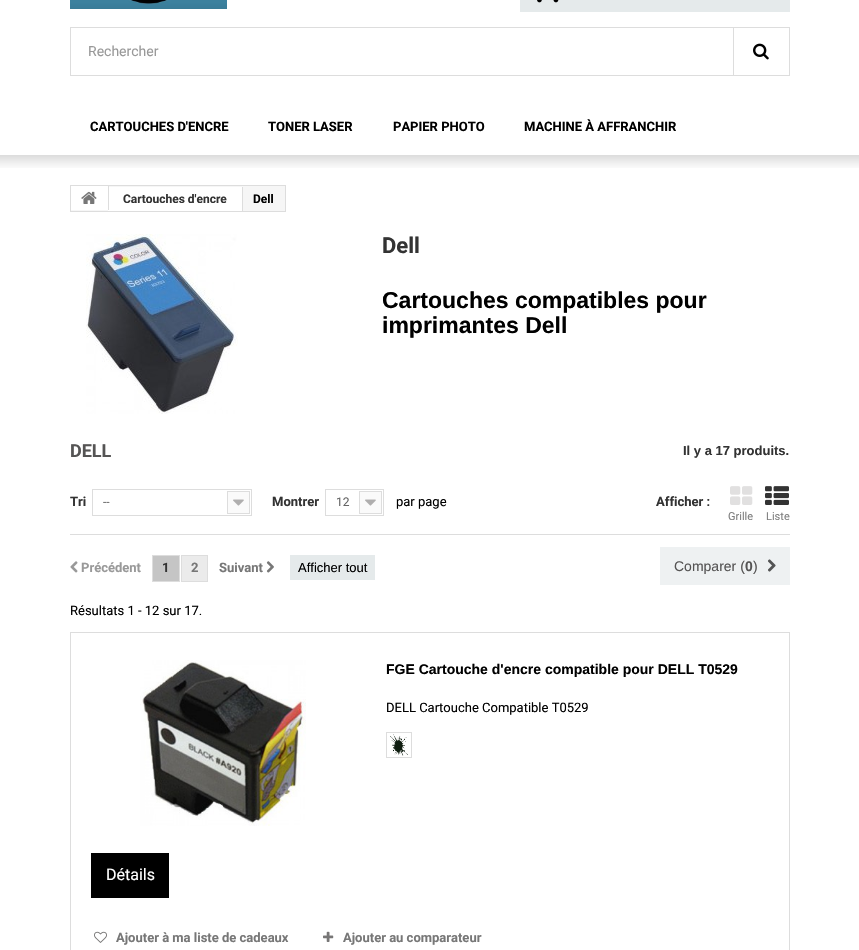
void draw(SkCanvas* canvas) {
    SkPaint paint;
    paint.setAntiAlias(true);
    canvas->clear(0xFFFFFFFF);
    canvas->drawImageRect(SkImages::DeferredFromEncodedData(SkData::MakeFromFileName("img1.png")), SkRect::MakeXYWH(70, 0, 157, 9), SkSamplingOptions());
    paint.setColor(0xFFE5EAEB);
    canvas->drawRect(SkRect::MakeXYWH(520, 0, 270, 12), paint);
    canvas->drawImageRect(SkImages::DeferredFromEncodedData(SkData::MakeFromFileName("img2.png")), SkRect::MakeXYWH(537, 0, 22, 3), SkSamplingOptions());
    paint.setStyle(SkPaint::kStroke_Style);
    paint.setStrokeWidth(1);
    paint.setColor(0xFFDDDDDD);
    canvas->drawRect(SkRect::MakeXYWH(70.5f, 27.5f, 719, 48), paint);
    SkFont font1(fontMgr->matchFamilyStyle("Roboto", SkFontStyle::Normal()), 14);
    font1.setSubpixel(true);
    paint.setStyle(SkPaint::kFill_Style);
    paint.setColor(0xFF999999);
    canvas->drawString("Rechercher", 88, 56, font1, paint);
    paint.setColor(0xFFDDDDDD);
    canvas->drawRect(SkRect::MakeXYWH(733, 28, 1, 47), paint);
    canvas->drawImageRect(SkImages::DeferredFromEncodedData(SkData::MakeFromFileName("img3.png")), SkRect::MakeXYWH(753, 43, 16, 17), SkSamplingOptions());
    SkFont font2(fontMgr->matchFamilyStyle("Roboto", SkFontStyle::Bold()), 13);
    font2.setSubpixel(true);
    paint.setColor(0xFF000000);
    canvas->drawString("CARTOUCHES D'ENCRE", 90, 131, font2, paint);
    canvas->drawString("TONER LASER", 268, 131, font2, paint);
    canvas->drawString("PAPIER PHOTO", 393, 131, font2, paint);
    canvas->drawString("MACHINE À AFFRANCHIR", 524, 131, font2, paint);
    canvas->drawImageRect(SkImages::DeferredFromEncodedData(SkData::MakeFromFileName("img4.png")), SkRect::MakeXYWH(0, 155, 859, 13), SkSamplingOptions());
    paint.setColor(0xFFF6F6F6);
    canvas->drawRect(SkRect::MakeXYWH(70.5f, 185.5f, 215, 26), paint);
    paint.setStyle(SkPaint::kStroke_Style);
    paint.setColor(0xFFDDDDDD);
    canvas->drawRect(SkRect::MakeXYWH(70.5f, 185.5f, 215, 26), paint);
    paint.setStyle(SkPaint::kFill_Style);
    paint.setColor(0xFFFFFFFF);
    canvas->drawRect(SkRect::MakeXYWH(71, 186, 37, 24), paint);
    canvas->drawRect(SkRect::MakeXYWH(108, 187, 134, 24), paint);
    paint.setColor(0xFFDDDDDD);
    canvas->drawRect(SkRect::MakeXYWH(108, 186, 1, 24), paint);
    canvas->drawImageRect(SkImages::DeferredFromEncodedData(SkData::MakeFromFileName("img5.png")), SkRect::MakeXYWH(81, 191, 16, 13), SkSamplingOptions());
    canvas->drawRect(SkRect::MakeXYWH(242, 187, 1, 24), paint);
    SkFont font3(fontMgr->matchFamilyStyle("Roboto", SkFontStyle::Bold()), 12);
    font3.setSubpixel(true);
    paint.setColor(0xFF333333);
    canvas->drawString("Cartouches d'encre", 123, 203, font3, paint);
    paint.setColor(0xFF000000);
    canvas->drawString("Dell", 253, 203, font3, paint);
    canvas->drawImageRect(SkImages::DeferredFromEncodedData(SkData::MakeFromFileName("img6.png")), SkRect::MakeXYWH(86, 234, 152, 180), SkSamplingOptions());
    SkFont font4(fontMgr->matchFamilyStyle("Roboto", SkFontStyle::Bold()), 22);
    font4.setSubpixel(true);
    paint.setColor(0xFF333333);
    canvas->drawString("Dell", 382, 253, font4, paint);
    SkFont font5(fontMgr->matchFamilyStyle("Liberation Sans", SkFontStyle::Bold()), 23);
    font5.setSubpixel(true);
    paint.setColor(0xFF000000);
    canvas->drawString("Cartouches compatibles pour", 382, 308, font5, paint);
    canvas->drawString("imprimantes Dell", 382, 333, font5, paint);
    SkFont font6(fontMgr->matchFamilyStyle("Roboto", SkFontStyle::Bold()), 18);
    font6.setSubpixel(true);
    paint.setColor(0xFF555454);
    canvas->drawString("DELL", 70, 457, font6, paint);
    SkFont font7(fontMgr->matchFamilyStyle("Liberation Sans", SkFontStyle::Bold()), 13);
    font7.setSubpixel(true);
    paint.setColor(0xFF333333);
    canvas->drawString("Il y a 17 produits.", 683, 455, font7, paint);
    paint.setColor(0xFFDDDDDD);
    canvas->drawRect(SkRect::MakeXYWH(70, 534, 720, 1), paint);
    paint.setColor(0xFF333333);
    canvas->drawString("Tri", 70, 506, font2, paint);
    paint.setStyle(SkPaint::kStroke_Style);
    paint.setColor(0xFFDDDDDD);
    canvas->drawRect(SkRect::MakeXYWH(92.5f, 489.5f, 159, 26), paint);
    SkFont font8(fontMgr->matchFamilyStyle("Roboto", SkFontStyle::Normal()), 12);
    font8.setSubpixel(true);
    paint.setStyle(SkPaint::kFill_Style);
    paint.setColor(0xFF666666);
    canvas->drawString("--", 103, 506, font8, paint);
    paint.setColor(0xFFFAFAFA);
    canvas->drawRect(SkRect::MakeXYWH(227.5f, 491.5f, 22, 22), paint);
    paint.setStyle(SkPaint::kStroke_Style);
    paint.setColor(0xFFDDDDDD);
    canvas->drawRect(SkRect::MakeXYWH(227.5f, 491.5f, 22, 22), paint);
    canvas->drawImageRect(SkImages::DeferredFromEncodedData(SkData::MakeFromFileName("img7.png")), SkRect::MakeXYWH(233, 499, 11, 7), SkSamplingOptions());
    paint.setStyle(SkPaint::kFill_Style);
    paint.setColor(0xFF333333);
    canvas->drawString("Montrer", 272, 506, font2, paint);
    paint.setStyle(SkPaint::kStroke_Style);
    paint.setColor(0xFFDDDDDD);
    canvas->drawRect(SkRect::MakeXYWH(325.5f, 489.5f, 58, 26), paint);
    paint.setStyle(SkPaint::kFill_Style);
    paint.setColor(0xFF666666);
    canvas->drawString("12", 336, 506, font8, paint);
    paint.setColor(0xFFFAFAFA);
    canvas->drawRect(SkRect::MakeXYWH(359.5f, 491.5f, 22, 22), paint);
    paint.setStyle(SkPaint::kStroke_Style);
    paint.setColor(0xFFDDDDDD);
    canvas->drawRect(SkRect::MakeXYWH(359.5f, 491.5f, 22, 22), paint);
    canvas->drawImageRect(SkImages::DeferredFromEncodedData(SkData::MakeFromFileName("img7.png")), SkRect::MakeXYWH(365, 499, 11, 7), SkSamplingOptions());
    SkFont font9(fontMgr->matchFamilyStyle("Roboto", SkFontStyle::Normal()), 13);
    font9.setSubpixel(true);
    paint.setStyle(SkPaint::kFill_Style);
    paint.setColor(0xFF000000);
    canvas->drawString("par page", 396, 506, font9, paint);
    paint.setColor(0xFF333333);
    canvas->drawString("Afficher :", 656, 506, font2, paint);
    canvas->drawImageRect(SkImages::DeferredFromEncodedData(SkData::MakeFromFileName("img8.png")), SkRect::MakeXYWH(730, 486, 23, 19), SkSamplingOptions());
    SkFont font10(fontMgr->matchFamilyStyle("Roboto", SkFontStyle::Normal()), 11);
    font10.setSubpixel(true);
    paint.setColor(0xFF808080);
    canvas->drawString("Grille", 728, 520, font10, paint);
    canvas->drawImageRect(SkImages::DeferredFromEncodedData(SkData::MakeFromFileName("img9.png")), SkRect::MakeXYWH(765, 486, 24, 19), SkSamplingOptions());
    canvas->drawString("Liste", 766, 520, font10, paint);
    canvas->drawImageRect(SkImages::DeferredFromEncodedData(SkData::MakeFromFileName("img10.png")), SkRect::MakeXYWH(70, 561, 8, 12), SkSamplingOptions());
    paint.setColor(0xFF999999);
    canvas->drawString("Précédent", 81, 572, font2, paint);
    paint.setStyle(SkPaint::kStroke_Style);
    paint.setColor(0xFFDDDDDD);
    canvas->drawRect(SkRect::MakeXYWH(152.5f, 555.5f, 27, 26), paint);
    paint.setStyle(SkPaint::kFill_Style);
    paint.setColor(0xFFC5C5C5);
    canvas->drawRect(SkRect::MakeXYWH(153, 556, 26, 25), paint);
    paint.setColor(0xFF333333);
    canvas->drawString("1", 162, 572, font2, paint);
    paint.setStyle(SkPaint::kStroke_Style);
    paint.setColor(0xFFDDDDDD);
    canvas->drawRect(SkRect::MakeXYWH(181.5f, 555.5f, 26, 26), paint);
    paint.setStyle(SkPaint::kFill_Style);
    paint.setColor(0xFFEBEBEB);
    canvas->drawRect(SkRect::MakeXYWH(182, 556, 25, 25), paint);
    paint.setColor(0xFF777777);
    canvas->drawString("2", 191, 572, font2, paint);
    canvas->drawString("Suivant", 219, 572, font2, paint);
    canvas->drawImageRect(SkImages::DeferredFromEncodedData(SkData::MakeFromFileName("img11.png")), SkRect::MakeXYWH(266, 561, 8, 12), SkSamplingOptions());
    paint.setColor(0xFFE5EAEB);
    canvas->drawRect(SkRect::MakeXYWH(290, 555, 85, 25), paint);
    SkFont font11(fontMgr->matchFamilyStyle("Liberation Sans", SkFontStyle::Normal()), 13);
    font11.setSubpixel(true);
    paint.setColor(0xFF000000);
    canvas->drawString("Afficher tout", 298, 572, font11, paint);
    paint.setColor(0xFFEEF1F2);
    canvas->drawRect(SkRect::MakeXYWH(660, 547, 130, 38), paint);
    SkFont font12(fontMgr->matchFamilyStyle("Liberation Sans", SkFontStyle::Normal()), 14);
    font12.setSubpixel(true);
    paint.setColor(0xFF555454);
    canvas->drawString("Comparer (", 674, 571, font12, paint);
    SkFont font13(fontMgr->matchFamilyStyle("Liberation Sans", SkFontStyle::Bold()), 14);
    font13.setSubpixel(true);
    canvas->drawString("0", 745, 571, font13, paint);
    canvas->drawString(")", 753, 571, font12, paint);
    canvas->drawImageRect(SkImages::DeferredFromEncodedData(SkData::MakeFromFileName("img12.png")), SkRect::MakeXYWH(768, 559, 8, 13), SkSamplingOptions());
    paint.setColor(0xFF000000);
    canvas->drawString("Résultats 1 - 12 sur 17.", 70, 615, font9, paint);
    paint.setStyle(SkPaint::kStroke_Style);
    paint.setColor(0xFFDDDDDD);
    canvas->drawRect(SkRect::MakeXYWH(70.5f, 632.5f, 719, 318), paint);
    canvas->drawImageRect(SkImages::DeferredFromEncodedData(SkData::MakeFromFileName("img13.png")), SkRect::MakeXYWH(140, 660, 166, 166), SkSamplingOptions());
    paint.setStyle(SkPaint::kFill_Style);
    paint.setColor(0xFF000000);
    canvas->drawString("FGE Cartouche d'encre compatible pour DELL T0529", 386, 674, font13, paint);
    canvas->drawString("DELL Cartouche Compatible T0529", 386, 712, font9, paint);
    paint.setStyle(SkPaint::kStroke_Style);
    paint.setColor(0xFFDDDDDD);
    canvas->drawRect(SkRect::MakeXYWH(386.5f, 732.5f, 25, 25), paint);
    canvas->drawImageRect(SkImages::DeferredFromEncodedData(SkData::MakeFromFileName("img14.png")), SkRect::MakeXYWH(390, 734, 18, 22), SkSamplingOptions());
    paint.setStyle(SkPaint::kFill_Style);
    paint.setColor(0xFF000000);
    canvas->drawRect(SkRect::MakeXYWH(91, 853, 78, 45), paint);
    SkFont font14(fontMgr->matchFamilyStyle("Roboto", SkFontStyle::Normal()), 16);
    font14.setSubpixel(true);
    paint.setColor(0xFFFFFFFF);
    canvas->drawString("Détails", 106, 880, font14, paint);
    canvas->drawImageRect(SkImages::DeferredFromEncodedData(SkData::MakeFromFileName("img15.png")), SkRect::MakeXYWH(94, 931, 13, 12), SkSamplingOptions());
    paint.setColor(0xFF777777);
    canvas->drawString("Ajouter à ma liste de cadeaux", 116, 942, font2, paint);
    canvas->drawImageRect(SkImages::DeferredFromEncodedData(SkData::MakeFromFileName("img16.png")), SkRect::MakeXYWH(323, 931, 11, 11), SkSamplingOptions());
    canvas->drawString("Ajouter au comparateur", 343, 942, font2, paint);
}
